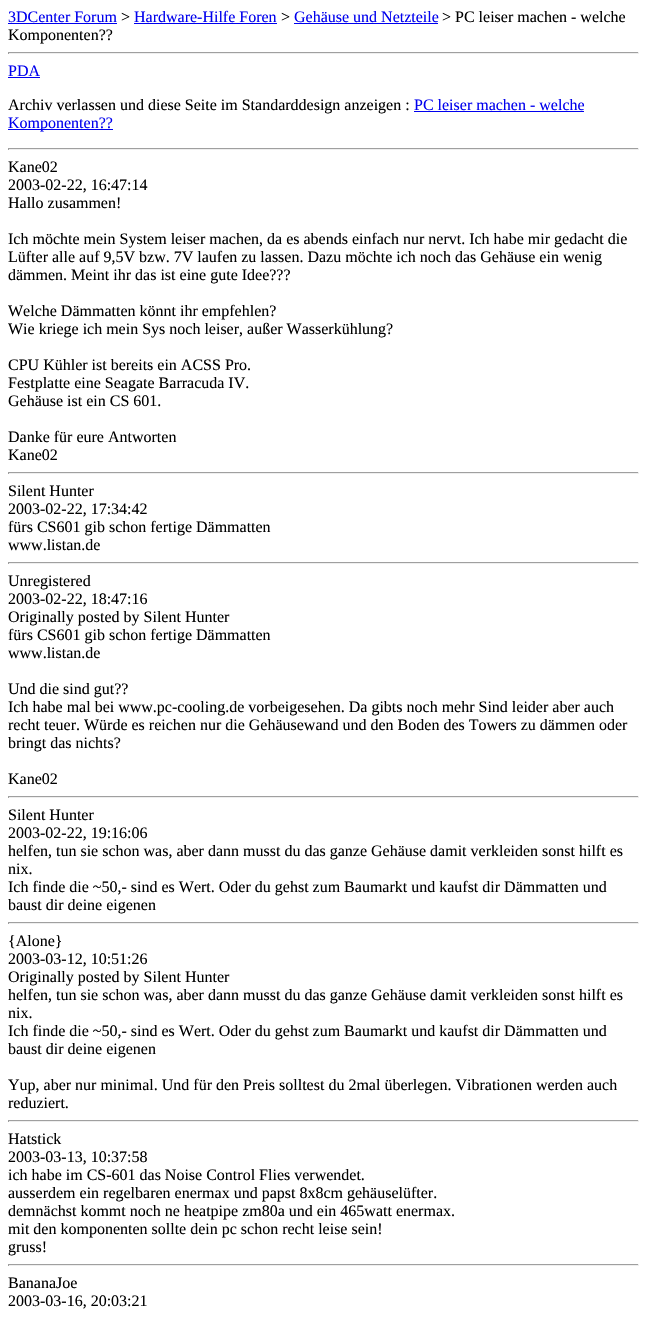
void draw(SkCanvas* canvas) {
    SkPaint paint;
    paint.setAntiAlias(true);
    canvas->clear(0xFFFFFFFF);
    SkFont font1(fontMgr->matchFamilyStyle("Liberation Serif", SkFontStyle::Normal()), 16);
    font1.setSubpixel(true);
    paint.setColor(0xFF0000EE);
    canvas->drawString("3DCenter Forum", 8, 22, font1, paint);
    canvas->drawRect(SkRect::MakeXYWH(8, 23, 109, 1), paint);
    paint.setColor(0xFF000000);
    canvas->drawString(">", 121, 22, font1, paint);
    paint.setColor(0xFF0000EE);
    canvas->drawString("Hardware-Hilfe Foren", 134, 22, font1, paint);
    canvas->drawRect(SkRect::MakeXYWH(134, 23, 143, 1), paint);
    paint.setColor(0xFF000000);
    canvas->drawString(">", 281, 22, font1, paint);
    paint.setColor(0xFF0000EE);
    canvas->drawString("Gehäuse und Netzteile", 294, 22, font1, paint);
    canvas->drawRect(SkRect::MakeXYWH(294, 23, 144, 1), paint);
    paint.setColor(0xFF000000);
    canvas->drawString("> PC leiser machen - welche", 442, 22, font1, paint);
    canvas->drawString("Komponenten?\077", 8, 40, font1, paint);
    paint.setColor(0xFF9F9F9F);
    canvas->drawRect(SkRect::MakeXYWH(8, 52, 631, 1), paint);
    paint.setColor(0xFFEEEEEE);
    canvas->drawRect(SkRect::MakeXYWH(638, 52, 1, 2), paint);
    canvas->drawRect(SkRect::MakeXYWH(8, 53, 631, 1), paint);
    paint.setColor(0xFF9F9F9F);
    canvas->drawRect(SkRect::MakeXYWH(8, 52, 1, 2), paint);
    paint.setColor(0xFF0000EE);
    canvas->drawString("PDA", 8, 76, font1, paint);
    canvas->drawRect(SkRect::MakeXYWH(8, 77, 32, 1), paint);
    paint.setColor(0xFF000000);
    canvas->drawString("Archiv verlassen und diese Seite im Standarddesign anzeigen :", 8, 110, font1, paint);
    paint.setColor(0xFF0000EE);
    canvas->drawString("PC leiser machen - welche", 414, 110, font1, paint);
    canvas->drawRect(SkRect::MakeXYWH(414, 111, 170, 1), paint);
    canvas->drawRect(SkRect::MakeXYWH(8, 129, 105, 1), paint);
    canvas->drawString("Komponenten?\077", 8, 128, font1, paint);
    paint.setColor(0xFF9F9F9F);
    canvas->drawRect(SkRect::MakeXYWH(8, 148, 631, 1), paint);
    paint.setColor(0xFFEEEEEE);
    canvas->drawRect(SkRect::MakeXYWH(638, 148, 1, 2), paint);
    canvas->drawRect(SkRect::MakeXYWH(8, 149, 631, 1), paint);
    paint.setColor(0xFF9F9F9F);
    canvas->drawRect(SkRect::MakeXYWH(8, 148, 1, 2), paint);
    paint.setColor(0xFF000000);
    canvas->drawString("Kane02", 8, 172, font1, paint);
    canvas->drawString("2003-02-22, 16:47:14", 8, 190, font1, paint);
    canvas->drawString("Hallo zusammen!", 8, 208, font1, paint);
    canvas->drawString("Ich möchte mein System leiser machen, da es abends einfach nur nervt. Ich habe mir gedacht die", 8, 244, font1, paint);
    canvas->drawString("Lüfter alle auf 9,5V bzw. 7V laufen zu lassen. Dazu möchte ich noch das Gehäuse ein wenig", 8, 262, font1, paint);
    canvas->drawString("dämmen. Meint ihr das ist eine gute Idee?\077?", 8, 280, font1, paint);
    canvas->drawString("Welche Dämmatten könnt ihr empfehlen?", 8, 316, font1, paint);
    canvas->drawString("Wie kriege ich mein Sys noch leiser, außer Wasserkühlung?", 8, 334, font1, paint);
    canvas->drawString("CPU Kühler ist bereits ein ACSS Pro.", 8, 370, font1, paint);
    canvas->drawString("Festplatte eine Seagate Barracuda IV.", 8, 388, font1, paint);
    canvas->drawString("Gehäuse ist ein CS 601.", 8, 406, font1, paint);
    canvas->drawString("Danke für eure Antworten", 8, 442, font1, paint);
    canvas->drawString("Kane02", 8, 460, font1, paint);
    paint.setColor(0xFF9F9F9F);
    canvas->drawRect(SkRect::MakeXYWH(8, 472, 631, 1), paint);
    paint.setColor(0xFFEEEEEE);
    canvas->drawRect(SkRect::MakeXYWH(638, 472, 1, 2), paint);
    canvas->drawRect(SkRect::MakeXYWH(8, 473, 631, 1), paint);
    paint.setColor(0xFF9F9F9F);
    canvas->drawRect(SkRect::MakeXYWH(8, 472, 1, 2), paint);
    paint.setColor(0xFF000000);
    canvas->drawString("Silent Hunter", 8, 496, font1, paint);
    canvas->drawString("2003-02-22, 17:34:42", 8, 514, font1, paint);
    canvas->drawString("fürs CS601 gib schon fertige Dämmatten", 8, 532, font1, paint);
    canvas->drawString("www.listan.de", 8, 550, font1, paint);
    paint.setColor(0xFF9F9F9F);
    canvas->drawRect(SkRect::MakeXYWH(8, 562, 631, 1), paint);
    paint.setColor(0xFFEEEEEE);
    canvas->drawRect(SkRect::MakeXYWH(638, 562, 1, 2), paint);
    canvas->drawRect(SkRect::MakeXYWH(8, 563, 631, 1), paint);
    paint.setColor(0xFF9F9F9F);
    canvas->drawRect(SkRect::MakeXYWH(8, 562, 1, 2), paint);
    paint.setColor(0xFF000000);
    canvas->drawString("Unregistered", 8, 586, font1, paint);
    canvas->drawString("2003-02-22, 18:47:16", 8, 604, font1, paint);
    canvas->drawString("Originally posted by Silent Hunter", 8, 622, font1, paint);
    canvas->drawString("fürs CS601 gib schon fertige Dämmatten", 8, 640, font1, paint);
    canvas->drawString("www.listan.de", 8, 658, font1, paint);
    canvas->drawString("Und die sind gut?\077", 8, 694, font1, paint);
    canvas->drawString("Ich habe mal bei www.pc-cooling.de vorbeigesehen. Da gibts noch mehr Sind leider aber auch", 8, 712, font1, paint);
    canvas->drawString("recht teuer. Würde es reichen nur die Gehäusewand und den Boden des Towers zu dämmen oder", 8, 730, font1, paint);
    canvas->drawString("bringt das nichts?", 8, 748, font1, paint);
    canvas->drawString("Kane02", 8, 784, font1, paint);
    paint.setColor(0xFF9F9F9F);
    canvas->drawRect(SkRect::MakeXYWH(8, 796, 631, 1), paint);
    paint.setColor(0xFFEEEEEE);
    canvas->drawRect(SkRect::MakeXYWH(638, 796, 1, 2), paint);
    canvas->drawRect(SkRect::MakeXYWH(8, 797, 631, 1), paint);
    paint.setColor(0xFF9F9F9F);
    canvas->drawRect(SkRect::MakeXYWH(8, 796, 1, 2), paint);
    paint.setColor(0xFF000000);
    canvas->drawString("Silent Hunter", 8, 820, font1, paint);
    canvas->drawString("2003-02-22, 19:16:06", 8, 838, font1, paint);
    canvas->drawString("helfen, tun sie schon was, aber dann musst du das ganze Gehäuse damit verkleiden sonst hilft es", 8, 856, font1, paint);
    canvas->drawString("nix.", 8, 874, font1, paint);
    canvas->drawString("Ich finde die ~50,- sind es Wert. Oder du gehst zum Baumarkt und kaufst dir Dämmatten und", 8, 892, font1, paint);
    canvas->drawString("baust dir deine eigenen", 8, 910, font1, paint);
    paint.setColor(0xFF9F9F9F);
    canvas->drawRect(SkRect::MakeXYWH(8, 922, 631, 1), paint);
    paint.setColor(0xFFEEEEEE);
    canvas->drawRect(SkRect::MakeXYWH(638, 922, 1, 2), paint);
    canvas->drawRect(SkRect::MakeXYWH(8, 923, 631, 1), paint);
    paint.setColor(0xFF9F9F9F);
    canvas->drawRect(SkRect::MakeXYWH(8, 922, 1, 2), paint);
    paint.setColor(0xFF000000);
    canvas->drawString("{Alone}", 8, 946, font1, paint);
    canvas->drawString("2003-03-12, 10:51:26", 8, 964, font1, paint);
    canvas->drawString("Originally posted by Silent Hunter", 8, 982, font1, paint);
    canvas->drawString("helfen, tun sie schon was, aber dann musst du das ganze Gehäuse damit verkleiden sonst hilft es", 8, 1000, font1, paint);
    canvas->drawString("nix.", 8, 1018, font1, paint);
    canvas->drawString("Ich finde die ~50,- sind es Wert. Oder du gehst zum Baumarkt und kaufst dir Dämmatten und", 8, 1036, font1, paint);
    canvas->drawString("baust dir deine eigenen", 8, 1054, font1, paint);
    canvas->drawString("Yup, aber nur minimal. Und für den Preis solltest du 2mal überlegen. Vibrationen werden auch", 8, 1090, font1, paint);
    canvas->drawString("reduziert.", 8, 1108, font1, paint);
    paint.setColor(0xFF9F9F9F);
    canvas->drawRect(SkRect::MakeXYWH(8, 1120, 631, 1), paint);
    paint.setColor(0xFFEEEEEE);
    canvas->drawRect(SkRect::MakeXYWH(638, 1120, 1, 2), paint);
    canvas->drawRect(SkRect::MakeXYWH(8, 1121, 631, 1), paint);
    paint.setColor(0xFF9F9F9F);
    canvas->drawRect(SkRect::MakeXYWH(8, 1120, 1, 2), paint);
    paint.setColor(0xFF000000);
    canvas->drawString("Hatstick", 8, 1144, font1, paint);
    canvas->drawString("2003-03-13, 10:37:58", 8, 1162, font1, paint);
    canvas->drawString("ich habe im CS-601 das Noise Control Flies verwendet.", 8, 1180, font1, paint);
    canvas->drawString("ausserdem ein regelbaren enermax und papst 8x8cm gehäuselüfter.", 8, 1198, font1, paint);
    canvas->drawString("demnächst kommt noch ne heatpipe zm80a und ein 465watt enermax.", 8, 1216, font1, paint);
    canvas->drawString("mit den komponenten sollte dein pc schon recht leise sein!", 8, 1234, font1, paint);
    canvas->drawString("gruss!", 8, 1252, font1, paint);
    paint.setColor(0xFF9F9F9F);
    canvas->drawRect(SkRect::MakeXYWH(8, 1264, 631, 1), paint);
    paint.setColor(0xFFEEEEEE);
    canvas->drawRect(SkRect::MakeXYWH(638, 1264, 1, 2), paint);
    canvas->drawRect(SkRect::MakeXYWH(8, 1265, 631, 1), paint);
    paint.setColor(0xFF9F9F9F);
    canvas->drawRect(SkRect::MakeXYWH(8, 1264, 1, 2), paint);
    paint.setColor(0xFF000000);
    canvas->drawString("BananaJoe", 8, 1288, font1, paint);
    canvas->drawString("2003-03-16, 20:03:21", 8, 1306, font1, paint);
}
